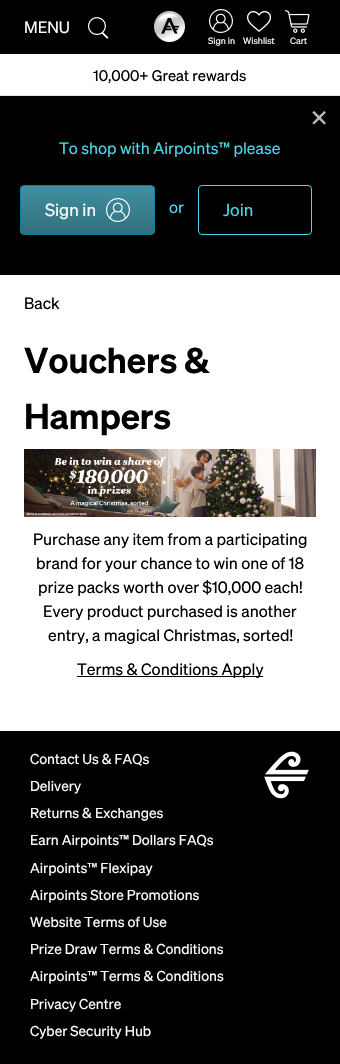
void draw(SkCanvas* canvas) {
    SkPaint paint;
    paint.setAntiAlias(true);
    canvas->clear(0xFFFFFFFF);
    paint.setColor(0xFF000000);
    canvas->drawRect(SkRect::MakeXYWH(0, 0, 340, 54), paint);
    SkFont font1(fontMgr->matchFamilyStyle("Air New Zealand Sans", SkFontStyle::Italic()), 16);
    font1.setSubpixel(true);
    paint.setColor(0xFFFFFFFF);
    canvas->drawString("MENU", 24, 33, font1, paint);
    canvas->drawImageRect(SkImages::DeferredFromEncodedData(SkData::MakeFromFileName("img1.png")), SkRect::MakeXYWH(88, 17, 21, 22), SkSamplingOptions());
    canvas->drawImageRect(SkImages::DeferredFromEncodedData(SkData::MakeFromFileName("img2.png")), SkRect::MakeXYWH(154, 11, 31, 31), SkSamplingOptions());
    canvas->drawImageRect(SkImages::DeferredFromEncodedData(SkData::MakeFromFileName("img3.png")), SkRect::MakeXYWH(209, 9, 24, 24), SkSamplingOptions());
    SkFont font2(fontMgr->matchFamilyStyle("Air New Zealand Sans", SkFontStyle::Italic()), 9);
    font2.setSubpixel(true);
    canvas->drawString("Sign in", 208, 44, font2, paint);
    canvas->drawImageRect(SkImages::DeferredFromEncodedData(SkData::MakeFromFileName("img4.png")), SkRect::MakeXYWH(247, 11, 24, 21), SkSamplingOptions());
    canvas->drawString("Wishlist", 243, 44, font2, paint);
    canvas->drawImageRect(SkImages::DeferredFromEncodedData(SkData::MakeFromFileName("img5.png")), SkRect::MakeXYWH(285, 10, 25, 23), SkSamplingOptions());
    canvas->drawString("Cart", 290, 44, font2, paint);
    paint.setColor(0xFFE5E5E5);
    canvas->drawRect(SkRect::MakeXYWH(0, 95, 340, 1), paint);
    SkFont font3(fontMgr->matchFamilyStyle("Air New Zealand Sans", SkFontStyle::Italic()), 15);
    font3.setSubpixel(true);
    paint.setColor(0xFF000000);
    canvas->drawString("10,000+ Great rewards", 93, 81, font3, paint);
    canvas->drawRect(SkRect::MakeXYWH(0, 96, 340, 179), paint);
    SkFont font4(fontMgr->matchFamilyStyle("Air New Zealand Sans", SkFontStyle::Italic()), 30);
    font4.setSubpixel(true);
    paint.setColor(0xFFB7B7B7);
    canvas->drawString("×", 310, 128, font4, paint);
    paint.setColor(0xFF4CD6E6);
    canvas->drawString("To shop with Airpoints™ please", 59, 154, font1, paint);
    canvas->save();
    canvas->clipPath(SkPathBuilder().moveTo(24, 185).lineTo(151, 185).cubicTo(153, 185, 155, 187, 155, 189).lineTo(155, 231).cubicTo(155, 233, 153, 235, 151, 235).lineTo(24, 235).cubicTo(22, 235, 20, 233, 20, 231).lineTo(20, 189).cubicTo(20, 187, 22, 185, 24, 185).close().detach(), true);
    {
        const SkColor colors[] = {0xFF4090A1, 0xFF316F7C};
        const float stops[] = {0, 1};
        const SkPoint ends[] = {{88, 186}, {88, 234}};
        paint.setShader(SkGradientShader::MakeLinear(ends, colors, stops, 2, SkTileMode::kClamp));
        paint.setAlpha(255);
    }
    canvas->drawRect(SkRect::MakeXYWH(20, 186, 135, 48), paint);
    canvas->restore();
    paint.setStyle(SkPaint::kStroke_Style);
    paint.setStrokeWidth(1);
    paint.setShader(nullptr);
    paint.setColor(0xFF008392);
    canvas->drawRoundRect(SkRect::MakeXYWH(20.5f, 185.5f, 134, 49), 3.5f, 3.5f, paint);
    SkFont font5(fontMgr->matchFamilyStyle("Air New Zealand Sans", SkFontStyle::Italic()), 17);
    font5.setSubpixel(true);
    paint.setStyle(SkPaint::kFill_Style);
    paint.setColor(0xFFFFFFFF);
    canvas->drawString("Sign in", 45, 216, font5, paint);
    canvas->drawImageRect(SkImages::DeferredFromEncodedData(SkData::MakeFromFileName("img6.png")), SkRect::MakeXYWH(106, 198, 24, 24), SkSamplingOptions());
    paint.setColor(0xFF4CD6E6);
    canvas->drawString("or", 169, 213, font1, paint);
    paint.setStyle(SkPaint::kStroke_Style);
    canvas->drawRoundRect(SkRect::MakeXYWH(198.5f, 185.5f, 113, 49), 3.5f, 3.5f, paint);
    paint.setStyle(SkPaint::kFill_Style);
    canvas->drawString("Join", 223, 216, font5, paint);
    paint.setColor(0xFF000000);
    canvas->drawString("Back", 24, 309, font1, paint);
    SkFont font6(fontMgr->matchFamilyStyle("Air New Zealand Sans", SkFontStyle(600, SkFontStyle::kNormal_Width, SkFontStyle::kItalic_Slant)), 35);
    font6.setSubpixel(true);
    canvas->drawString("Vouchers &", 24, 373, font6, paint);
    canvas->drawString("Hampers", 24, 429, font6, paint);
    canvas->drawImageRect(SkImages::DeferredFromEncodedData(SkData::MakeFromFileName("img7.png")), SkRect::MakeXYWH(24, 449, 292, 68), SkSamplingOptions());
    canvas->drawString("Purchase any item from a participating", 33, 545, font1, paint);
    canvas->drawString("brand for your chance to win one of 18", 36, 569, font1, paint);
    canvas->drawString("prize packs worth over $10,000 each!", 38, 593, font1, paint);
    canvas->drawString("Every product purchased is another", 43, 617, font1, paint);
    canvas->drawString("entry, a magical Christmas, sorted!", 48, 641, font1, paint);
    canvas->drawRect(SkRect::MakeXYWH(77, 676, 186, 1), paint);
    canvas->drawString("Terms & Conditions Apply", 77, 675, font1, paint);
    canvas->drawRect(SkRect::MakeXYWH(0, 731, 340, 333), paint);
    canvas->drawImageRect(SkImages::DeferredFromEncodedData(SkData::MakeFromFileName("img8.png")), SkRect::MakeXYWH(264, 751, 45, 48), SkSamplingOptions());
    SkFont font7(fontMgr->matchFamilyStyle("Air New Zealand Sans", SkFontStyle::Italic()), 14);
    font7.setSubpixel(true);
    paint.setColor(0xFFFFFFFF);
    canvas->drawString("Contact Us & FAQs", 30, 764, font7, paint);
    canvas->drawString("Delivery", 30, 791, font7, paint);
    canvas->drawString("Returns & Exchanges", 30, 818, font7, paint);
    canvas->drawString("Earn Airpoints™ Dollars FAQs", 30, 845, font7, paint);
    canvas->drawString("Airpoints™ Flexipay", 30, 873, font7, paint);
    canvas->drawString("Airpoints Store Promotions", 30, 900, font7, paint);
    canvas->drawString("Website Terms of Use", 30, 927, font7, paint);
    canvas->drawString("Prize Draw Terms & Conditions", 30, 954, font7, paint);
    canvas->drawString("Airpoints™ Terms & Conditions", 30, 981, font7, paint);
    canvas->drawString("Privacy Centre", 30, 1009, font7, paint);
    canvas->drawString("Cyber Security Hub", 30, 1036, font7, paint);
}
